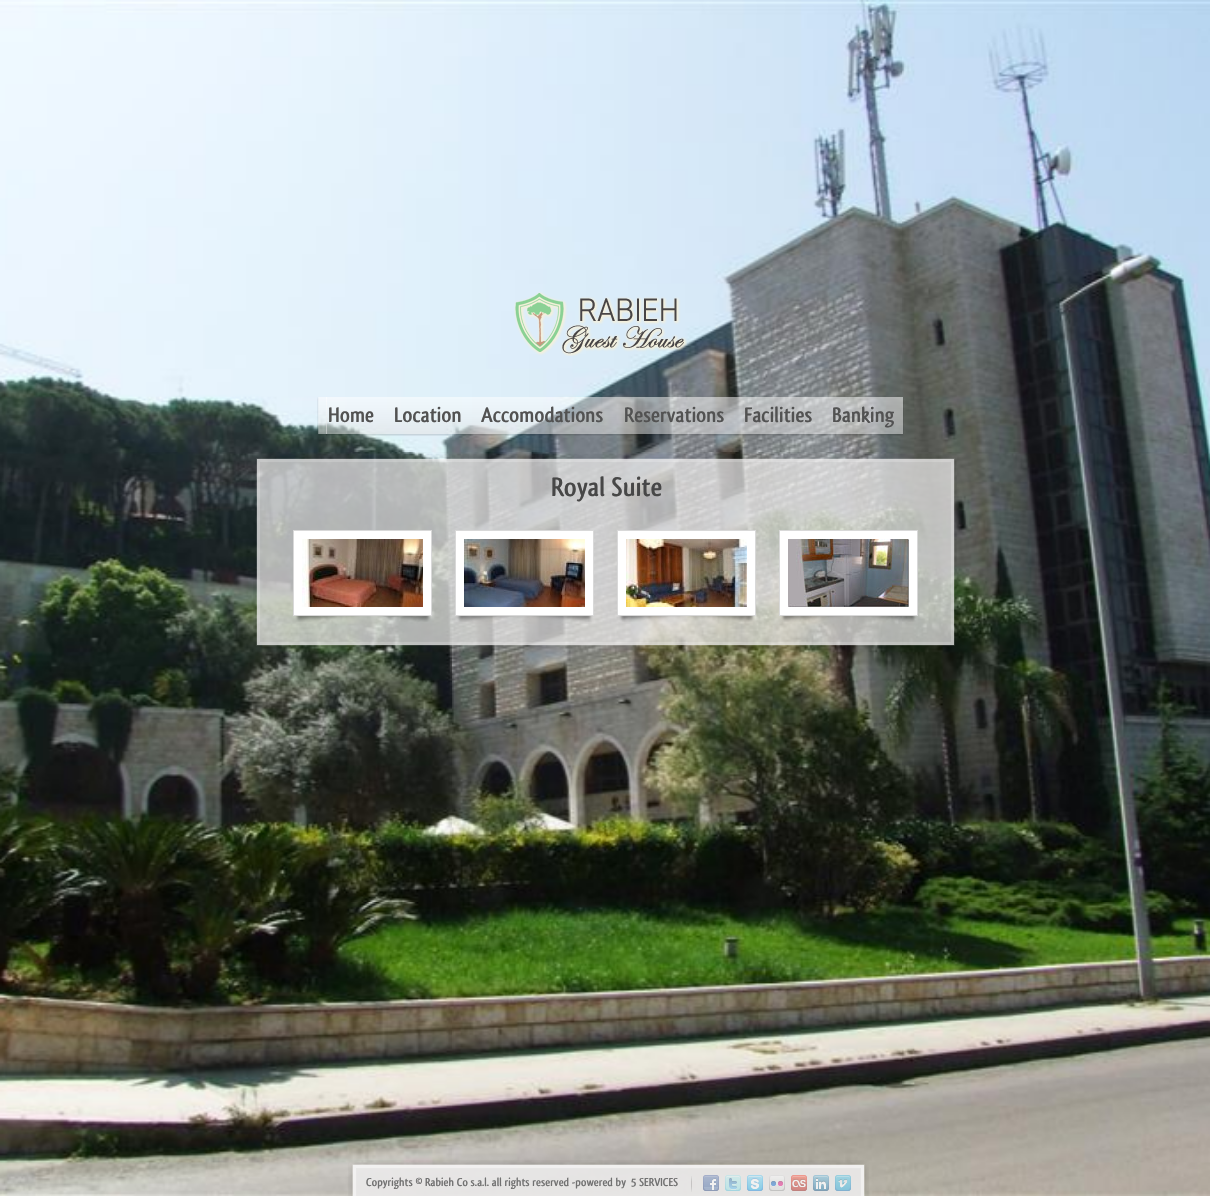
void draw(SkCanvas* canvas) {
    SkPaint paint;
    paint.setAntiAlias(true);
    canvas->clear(0xFFFFFFFF);
    canvas->drawImageRect(SkImages::DeferredFromEncodedData(SkData::MakeFromFileName("img1.png")), SkRect::MakeXYWH(0, 0, 1210, 1196), SkSamplingOptions());
    canvas->drawImageRect(SkImages::DeferredFromEncodedData(SkData::MakeFromFileName("img2.png")), SkRect::MakeXYWH(514, 292, 173, 64), SkSamplingOptions());
    canvas->drawImageRect(SkImages::DeferredFromEncodedData(SkData::MakeFromFileName("img3.png")), SkRect::MakeXYWH(317, 397, 10, 39), SkSamplingOptions());
    canvas->drawImageRect(SkImages::DeferredFromEncodedData(SkData::MakeFromFileName("img4.png")), SkRect::MakeXYWH(895, 397, 9, 39), SkSamplingOptions());
    canvas->drawImageRect(SkImages::DeferredFromEncodedData(SkData::MakeFromFileName("img5.png")), SkRect::MakeXYWH(326, 397, 569, 39), SkSamplingOptions());
    SkFont font1(fontMgr->matchFamilyStyle("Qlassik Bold", SkFontStyle::Bold()), 22);
    font1.setSubpixel(true);
    paint.setColor(0xFF525252);
    canvas->drawString("Home", 328, 422, font1, paint);
    canvas->drawString("Location", 394, 422, font1, paint);
    canvas->drawString("Accomodations", 481, 422, font1, paint);
    canvas->drawString("Reservations", 624, 422, font1, paint);
    canvas->drawString("Facilities", 744, 422, font1, paint);
    canvas->drawString("Banking", 832, 422, font1, paint);
    canvas->drawImageRect(SkImages::DeferredFromEncodedData(SkData::MakeFromFileName("img6.png")), SkRect::MakeXYWH(256, 454, 700, 21), SkSamplingOptions());
    canvas->drawImageRect(SkImages::DeferredFromEncodedData(SkData::MakeFromFileName("img7.png")), SkRect::MakeXYWH(254, 629, 702, 21), SkSamplingOptions());
    canvas->drawImageRect(SkImages::DeferredFromEncodedData(SkData::MakeFromFileName("img8.png")), SkRect::MakeXYWH(253, 475, 704, 154), SkSamplingOptions());
    SkFont font2(fontMgr->matchFamilyStyle("Qlassik Bold", SkFontStyle::Bold()), 28);
    font2.setSubpixel(true);
    paint.setColor(0xFF474747);
    canvas->drawString("Royal Suite", 551, 496, font2, paint);
    canvas->drawImageRect(SkImages::DeferredFromEncodedData(SkData::MakeFromFileName("img9.png")), SkRect::MakeXYWH(293, 530, 139, 92), SkSamplingOptions());
    canvas->drawImageRect(SkImages::DeferredFromEncodedData(SkData::MakeFromFileName("img10.png")), SkRect::MakeXYWH(302, 539, 121, 68), SkSamplingOptions());
    canvas->drawImageRect(SkImages::DeferredFromEncodedData(SkData::MakeFromFileName("img11.png")), SkRect::MakeXYWH(455, 530, 139, 92), SkSamplingOptions());
    canvas->drawImageRect(SkImages::DeferredFromEncodedData(SkData::MakeFromFileName("img12.png")), SkRect::MakeXYWH(464, 539, 121, 68), SkSamplingOptions());
    canvas->drawImageRect(SkImages::DeferredFromEncodedData(SkData::MakeFromFileName("img13.png")), SkRect::MakeXYWH(617, 530, 139, 92), SkSamplingOptions());
    canvas->drawImageRect(SkImages::DeferredFromEncodedData(SkData::MakeFromFileName("img14.png")), SkRect::MakeXYWH(626, 539, 121, 68), SkSamplingOptions());
    canvas->drawImageRect(SkImages::DeferredFromEncodedData(SkData::MakeFromFileName("img15.png")), SkRect::MakeXYWH(779, 530, 139, 92), SkSamplingOptions());
    canvas->drawImageRect(SkImages::DeferredFromEncodedData(SkData::MakeFromFileName("img16.png")), SkRect::MakeXYWH(788, 539, 121, 68), SkSamplingOptions());
    canvas->drawImageRect(SkImages::DeferredFromEncodedData(SkData::MakeFromFileName("img17.png")), SkRect::MakeXYWH(348, 1160, 16, 36), SkSamplingOptions());
    canvas->drawImageRect(SkImages::DeferredFromEncodedData(SkData::MakeFromFileName("img18.png")), SkRect::MakeXYWH(853, 1160, 16, 36), SkSamplingOptions());
    canvas->drawImageRect(SkImages::DeferredFromEncodedData(SkData::MakeFromFileName("img19.png")), SkRect::MakeXYWH(364, 1160, 489, 36), SkSamplingOptions());
    SkFont font3(fontMgr->matchFamilyStyle("Qlassik Bold", SkFontStyle::Bold()), 12);
    font3.setSubpixel(true);
    paint.setColor(0xFF717171);
    canvas->drawString("Copyrights © Rabieh Co s.a.l. all rights reserved -powered by", 366, 1186, font3, paint);
    canvas->drawString("5 SERVICES", 631, 1186, font3, paint);
    canvas->drawImageRect(SkImages::DeferredFromEncodedData(SkData::MakeFromFileName("img20.png")), SkRect::MakeXYWH(691, 1176, 1, 16), SkSamplingOptions());
    canvas->drawImageRect(SkImages::DeferredFromEncodedData(SkData::MakeFromFileName("img21.png")), SkRect::MakeXYWH(703, 1175, 16, 16), SkSamplingOptions());
    canvas->drawImageRect(SkImages::DeferredFromEncodedData(SkData::MakeFromFileName("img22.png")), SkRect::MakeXYWH(725, 1175, 16, 16), SkSamplingOptions());
    canvas->drawImageRect(SkImages::DeferredFromEncodedData(SkData::MakeFromFileName("img23.png")), SkRect::MakeXYWH(747, 1175, 16, 16), SkSamplingOptions());
    canvas->drawImageRect(SkImages::DeferredFromEncodedData(SkData::MakeFromFileName("img24.png")), SkRect::MakeXYWH(769, 1175, 16, 16), SkSamplingOptions());
    canvas->drawImageRect(SkImages::DeferredFromEncodedData(SkData::MakeFromFileName("img25.png")), SkRect::MakeXYWH(791, 1175, 16, 16), SkSamplingOptions());
    canvas->drawImageRect(SkImages::DeferredFromEncodedData(SkData::MakeFromFileName("img26.png")), SkRect::MakeXYWH(813, 1175, 16, 16), SkSamplingOptions());
    canvas->drawImageRect(SkImages::DeferredFromEncodedData(SkData::MakeFromFileName("img27.png")), SkRect::MakeXYWH(835, 1175, 16, 16), SkSamplingOptions());
}
